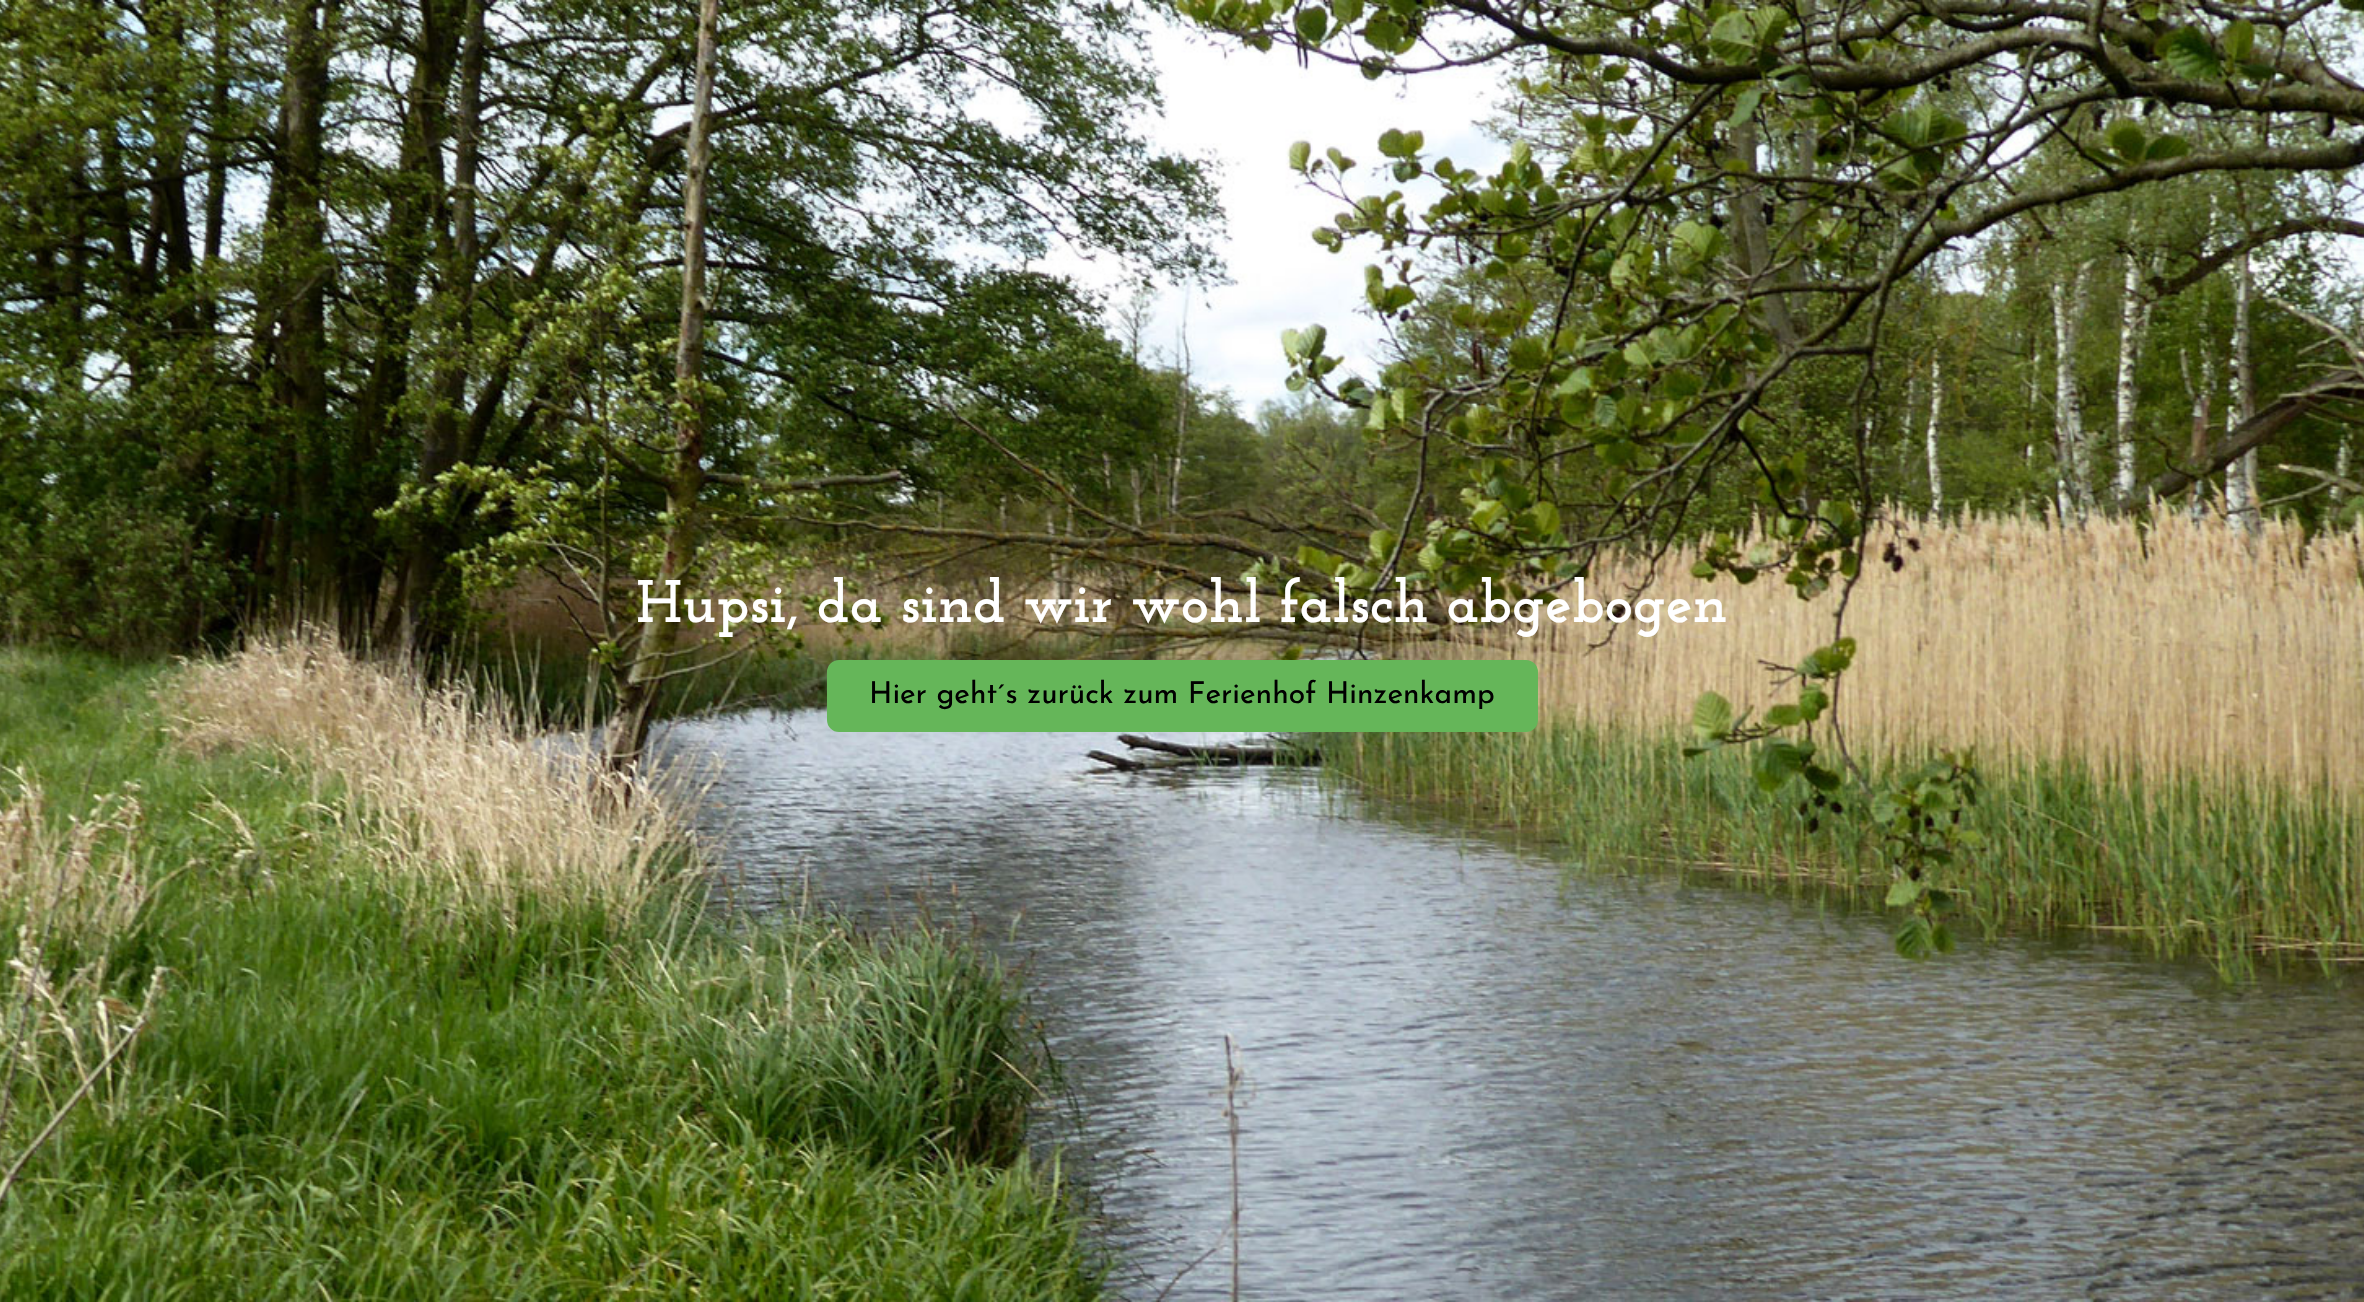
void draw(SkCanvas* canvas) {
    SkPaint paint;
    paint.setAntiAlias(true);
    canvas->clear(0xFFFFFFFF);
    canvas->drawImageRect(SkImages::DeferredFromEncodedData(SkData::MakeFromFileName("img1.png")), SkRect::MakeXYWH(0, 0, 2364, 1302), SkSamplingOptions());
    SkFont font1(fontMgr->matchFamilyStyle("Josefin Slab", SkFontStyle::Bold()), 60);
    font1.setSubpixel(true);
    paint.setColor(0xFFFFFFFF);
    canvas->drawString("Hupsi, da sind wir wohl falsch abgebogen", 636, 622, font1, paint);
    paint.setColor(0xFF65B659);
    canvas->drawRoundRect(SkRect::MakeXYWH(828, 661, 709, 70), 11, 11, paint);
    paint.setStyle(SkPaint::kStroke_Style);
    paint.setStrokeWidth(2);
    canvas->drawRoundRect(SkRect::MakeXYWH(828, 661, 709, 70), 11, 11, paint);
    SkFont font2(fontMgr->matchFamilyStyle("Josefin Sans", SkFontStyle::Normal()), 30);
    font2.setSubpixel(true);
    paint.setStyle(SkPaint::kFill_Style);
    paint.setColor(0xFF000000);
    canvas->drawString("Hier geht´s zurück zum Ferienhof Hinzenkamp", 869, 703, font2, paint);
}
